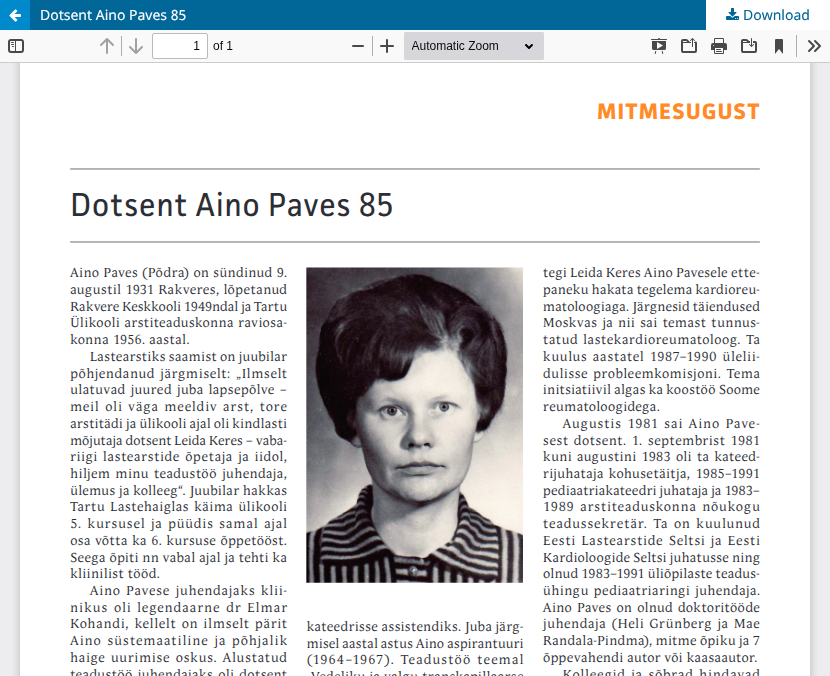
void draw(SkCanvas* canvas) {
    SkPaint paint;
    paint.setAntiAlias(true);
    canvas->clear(0xFFFFFFFF);
    paint.setColor(0xFF006798);
    canvas->drawRect(SkRect::MakeXYWH(30, 0, 676, 30), paint);
    paint.setColor(0xFF008ACB);
    canvas->drawRect(SkRect::MakeXYWH(0, 0, 30, 30), paint);
    canvas->drawImageRect(SkImages::DeferredFromEncodedData(SkData::MakeFromFileName("img1.png")), SkRect::MakeXYWH(9, 9, 12, 13), SkSamplingOptions());
    SkFont font1(fontMgr->matchFamilyStyle("Noto Sans", SkFontStyle::Normal()), 14);
    font1.setSubpixel(true);
    paint.setColor(0xFFFFFFFF);
    canvas->drawString("Dotsent Aino Paves 85", 40, 20, font1, paint);
    canvas->drawImageRect(SkImages::DeferredFromEncodedData(SkData::MakeFromFileName("img2.png")), SkRect::MakeXYWH(726, 8, 13, 12), SkSamplingOptions());
    paint.setColor(0xFF006798);
    canvas->drawString("Download", 743, 20, font1, paint);
    canvas->drawImageRect(SkImages::DeferredFromEncodedData(SkData::MakeFromFileName("img3.png")), SkRect::MakeXYWH(0, 30, 830, 646), SkSamplingOptions());
}
